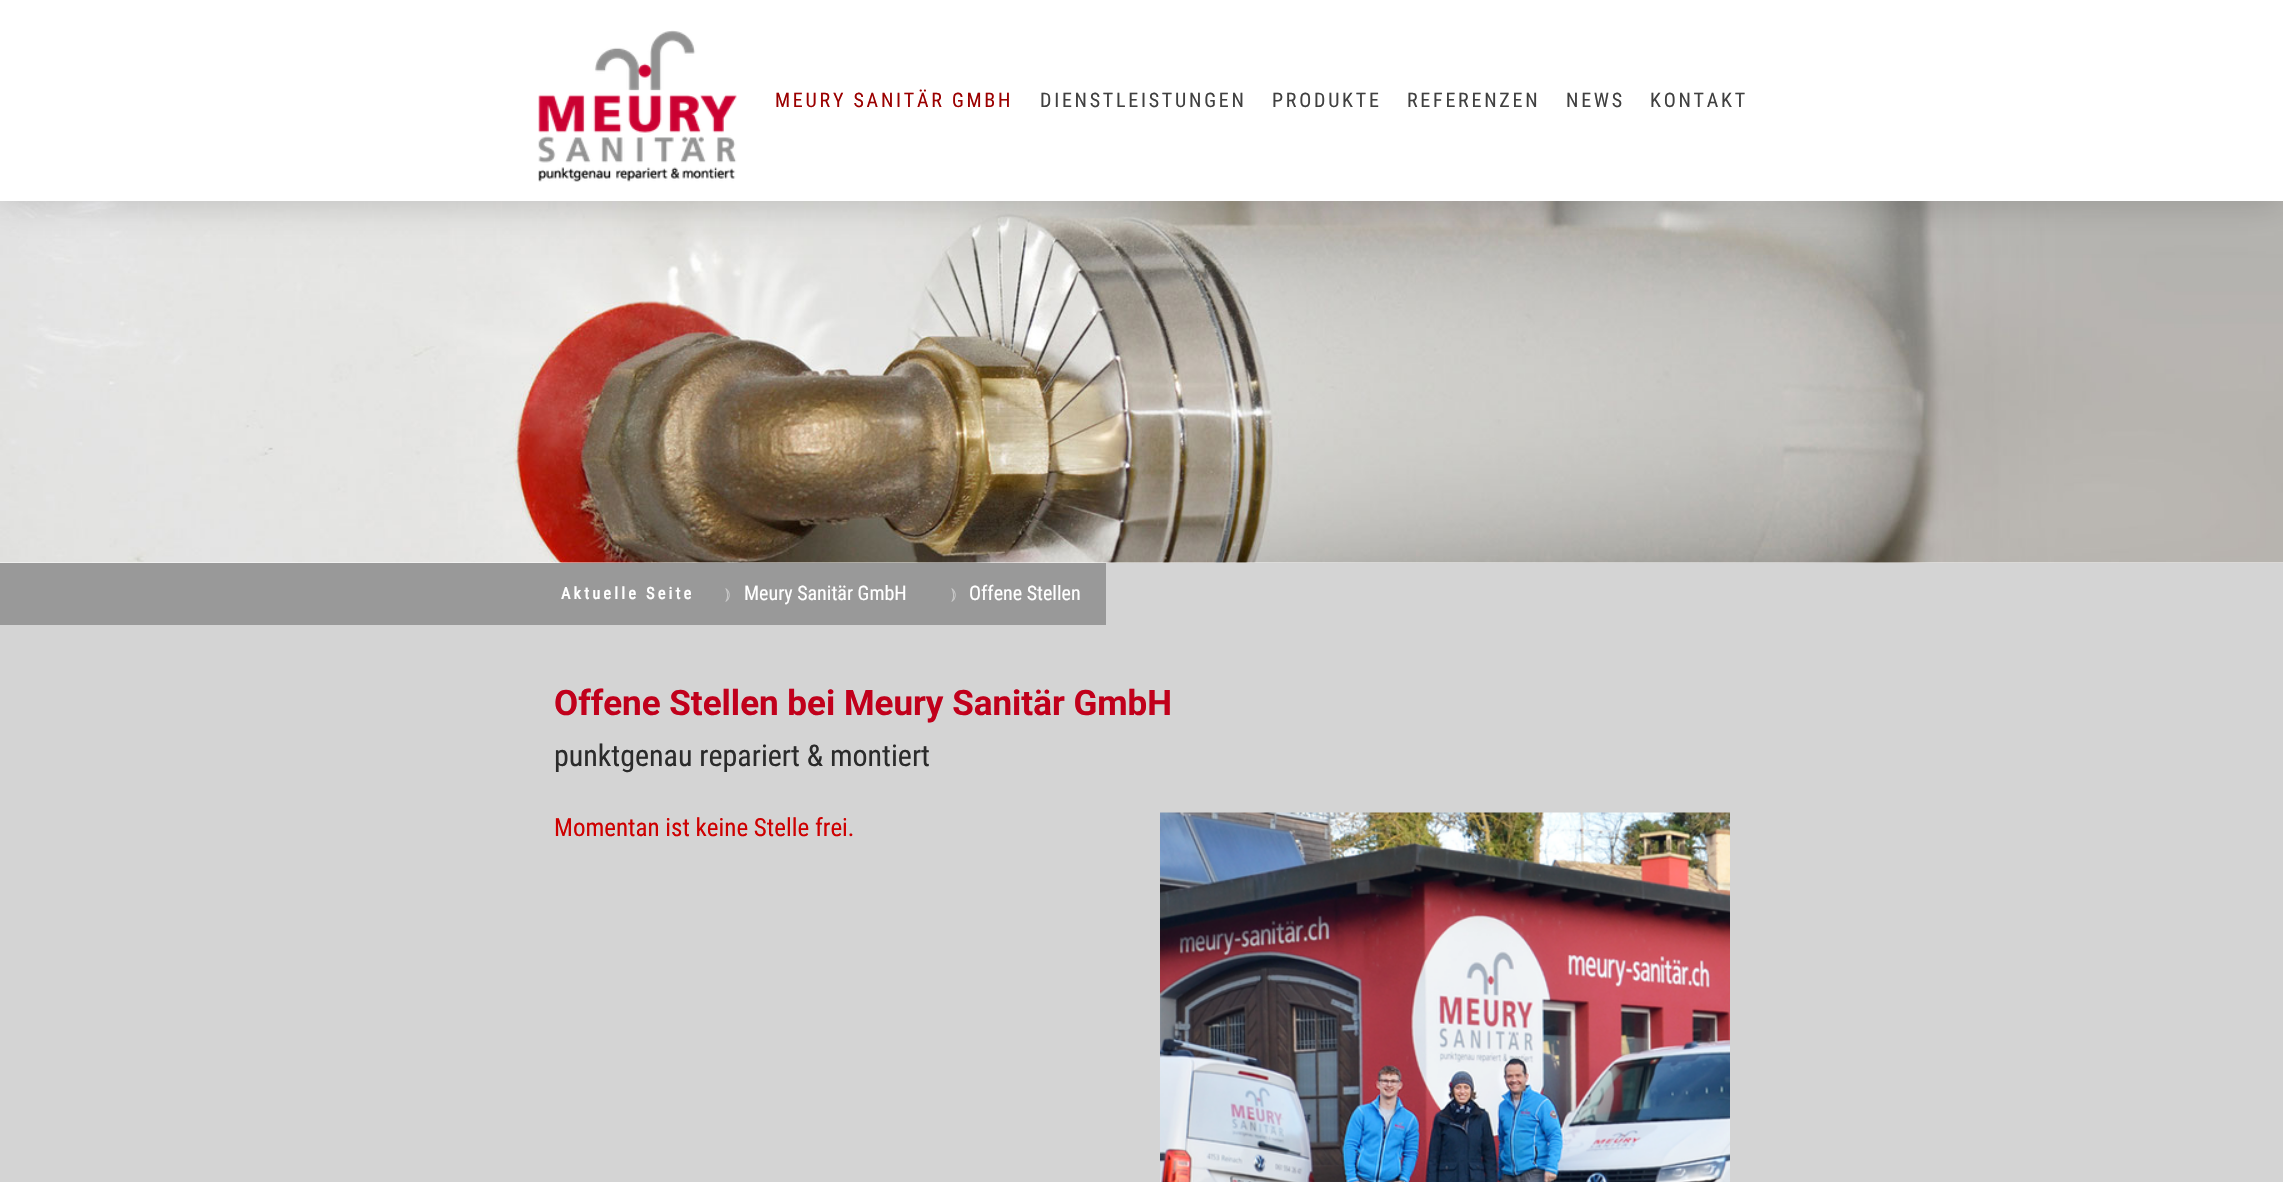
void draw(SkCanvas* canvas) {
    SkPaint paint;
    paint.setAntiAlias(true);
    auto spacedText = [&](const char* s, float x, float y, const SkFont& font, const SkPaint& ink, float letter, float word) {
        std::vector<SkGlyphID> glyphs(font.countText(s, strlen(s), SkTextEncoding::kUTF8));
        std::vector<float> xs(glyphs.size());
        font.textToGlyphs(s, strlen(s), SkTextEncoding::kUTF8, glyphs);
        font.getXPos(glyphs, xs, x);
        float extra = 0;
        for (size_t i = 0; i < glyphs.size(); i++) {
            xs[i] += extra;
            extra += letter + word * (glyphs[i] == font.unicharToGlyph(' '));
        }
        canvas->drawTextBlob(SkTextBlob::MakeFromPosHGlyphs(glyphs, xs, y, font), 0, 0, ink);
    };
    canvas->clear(0xFFFFFFFF);
    canvas->drawImageRect(SkImages::DeferredFromEncodedData(SkData::MakeFromFileName("img2.png")), SkRect::MakeXYWH(0, 201, 2283, 362), SkSamplingOptions());
    paint.setColor(0x33000000);
    paint.setMaskFilter(SkMaskFilter::MakeBlur(kNormal_SkBlurStyle, 19));
    canvas->drawRect(SkRect::MakeXYWH(0, 0, 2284, 201), paint);
    paint.setMaskFilter(nullptr);
    paint.setColor(0xFFFFFFFF);
    canvas->drawRect(SkRect::MakeXYWH(0, 0, 2283, 201), paint);
    canvas->drawImageRect(SkImages::DeferredFromEncodedData(SkData::MakeFromFileName("img1.png")), SkRect::MakeXYWH(538, 30, 199, 152), SkSamplingOptions());
    SkFont font1(fontMgr->matchFamilyStyle("Roboto Condensed", SkFontStyle::Normal()), 20);
    font1.setSubpixel(true);
    paint.setColor(0xFF9B0000);
    spacedText("MEURY SANITÄR GMBH", 775, 107, font1, paint, 2.75f, 0);
    paint.setColor(0xFF404040);
    spacedText("DIENSTLEISTUNGEN", 1040, 107, font1, paint, 2.75f, 0);
    spacedText("PRODUKTE", 1272, 107, font1, paint, 2.75f, 0);
    spacedText("REFERENZEN", 1407, 107, font1, paint, 2.75f, 0);
    spacedText("NEWS", 1566, 107, font1, paint, 2.75f, 0);
    spacedText("KONTAKT", 1650, 107, font1, paint, 2.75f, 0);
    paint.setColor(0xFFD4D4D4);
    canvas->drawRect(SkRect::MakeXYWH(0, 563, 2283, 619), paint);
    paint.setColor(0xFF999999);
    canvas->drawRect(SkRect::MakeXYWH(0, 563, 1106, 62), paint);
    SkFont font2(fontMgr->matchFamilyStyle("Roboto Condensed", SkFontStyle::Bold()), 16.25f);
    font2.setSubpixel(true);
    paint.setColor(0xFFFFFFFF);
    spacedText("Aktuelle Seite", 561, 599, font2, paint, 3.25f, 0);
    SkFont font3(fontMgr->matchFamilyStyle("FreeSerif", SkFontStyle::Normal()), 16);
    font3.setSubpixel(true);
    paint.setColor(0xFFCCCCCC);
    canvas->drawString("⦆", 725, 599, font3, paint);
    paint.setColor(0xFFFFFFFF);
    canvas->drawString("Meury Sanitär GmbH", 744, 600, font1, paint);
    paint.setColor(0xFFCCCCCC);
    canvas->drawString("⦆", 951, 599, font3, paint);
    paint.setColor(0xFFFFFFFF);
    canvas->drawString("Offene Stellen", 969, 600, font1, paint);
    SkFont font4(fontMgr->matchFamilyStyle("Roboto", SkFontStyle::Bold()), 35);
    font4.setSubpixel(true);
    paint.setColor(0xFFC1001B);
    canvas->drawString("Offene Stellen bei Meury Sanitär GmbH", 554, 715, font4, paint);
    SkFont font5(fontMgr->matchFamilyStyle("Roboto Condensed", SkFontStyle::Normal()), 30);
    font5.setSubpixel(true);
    paint.setColor(0xFF2B2B2B);
    canvas->drawString("punktgenau repariert & montiert", 554, 766, font5, paint);
    SkFont font6(fontMgr->matchFamilyStyle("Roboto Condensed", SkFontStyle::Normal()), 25);
    font6.setSubpixel(true);
    paint.setColor(0xFFCE0000);
    canvas->drawString("Momentan ist keine Stelle frei.", 554, 836, font6, paint);
    canvas->drawImageRect(SkImages::DeferredFromEncodedData(SkData::MakeFromFileName("img3.png")), SkRect::MakeXYWH(1160, 812, 570, 370), SkSamplingOptions());
}
